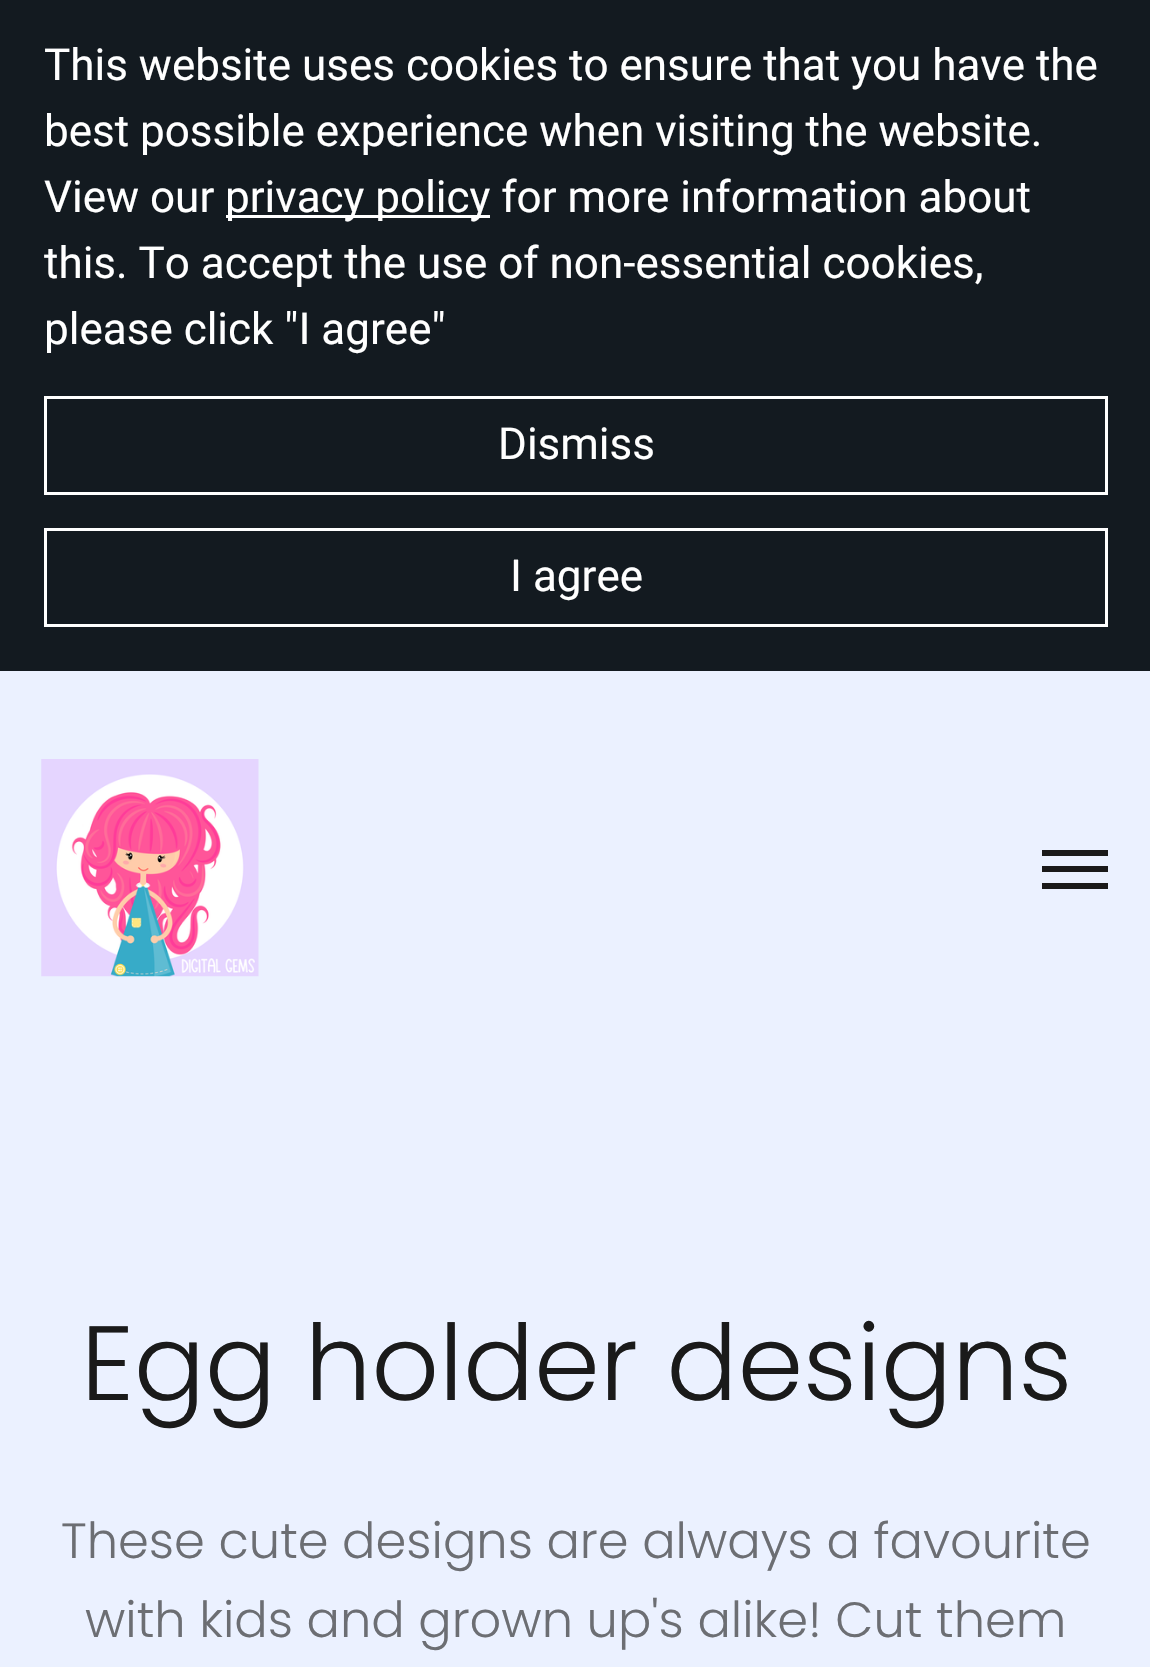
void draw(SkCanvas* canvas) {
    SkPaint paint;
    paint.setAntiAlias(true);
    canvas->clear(0xFF131A20);
    SkFont font1(fontMgr->matchFamilyStyle("Roboto", SkFontStyle::Normal()), 44);
    font1.setSubpixel(true);
    paint.setColor(0xFFFFFFFF);
    canvas->drawString("This website uses cookies to ensure that you have the", 44, 80, font1, paint);
    canvas->drawString("best possible experience when visiting the website.", 44, 146, font1, paint);
    canvas->drawString("View our", 44, 212, font1, paint);
    canvas->drawRect(SkRect::MakeXYWH(226, 215, 264, 3), paint);
    canvas->drawString("privacy policy for more information about", 225, 212, font1, paint);
    canvas->drawString("this. To accept the use of non-essential cookies,", 44, 278, font1, paint);
    canvas->drawString("please click \"I agree\"", 44, 344, font1, paint);
    paint.setStyle(SkPaint::kStroke_Style);
    paint.setStrokeWidth(3);
    canvas->drawRect(SkRect::MakeXYWH(45.5f, 397.5f, 1061, 96), paint);
    paint.setStyle(SkPaint::kFill_Style);
    canvas->drawString("Dismiss", 498, 459, font1, paint);
    paint.setStyle(SkPaint::kStroke_Style);
    canvas->drawRect(SkRect::MakeXYWH(45.5f, 529.5f, 1061, 96), paint);
    paint.setStyle(SkPaint::kFill_Style);
    canvas->drawString("I agree", 510, 591, font1, paint);
    paint.setColor(0xFFEBF1FF);
    canvas->drawRect(SkRect::MakeXYWH(0, 671, 1150, 996), paint);
    canvas->drawImageRect(SkImages::DeferredFromEncodedData(SkData::MakeFromFileName("img1.png")), SkRect::MakeXYWH(41, 759, 218, 218), SkSamplingOptions());
    paint.setColor(0xFF1A1A1A);
    canvas->drawRect(SkRect::MakeXYWH(1042, 866, 66, 6), paint);
    canvas->drawRect(SkRect::MakeXYWH(1042, 850, 66, 6), paint);
    canvas->drawRect(SkRect::MakeXYWH(1042, 883, 66, 6), paint);
    SkFont font2(fontMgr->matchFamilyStyle("Poppins", SkFontStyle(300, SkFontStyle::kNormal_Width, SkFontStyle::kUpright_Slant)), 105.25f);
    font2.setSubpixel(true);
    canvas->drawString("Egg holder designs", 81, 1400, font2, paint);
    SkFont font3(fontMgr->matchFamilyStyle("Poppins", SkFontStyle(300, SkFontStyle::kNormal_Width, SkFontStyle::kUpright_Slant)), 49.5f);
    font3.setSubpixel(true);
    paint.setColor(0xFF6C6E73);
    canvas->drawString("These cute designs are always a favourite", 61, 1558, font3, paint);
    canvas->drawString("with kids and grown up's alike! Cut them", 85, 1637, font3, paint);
}
